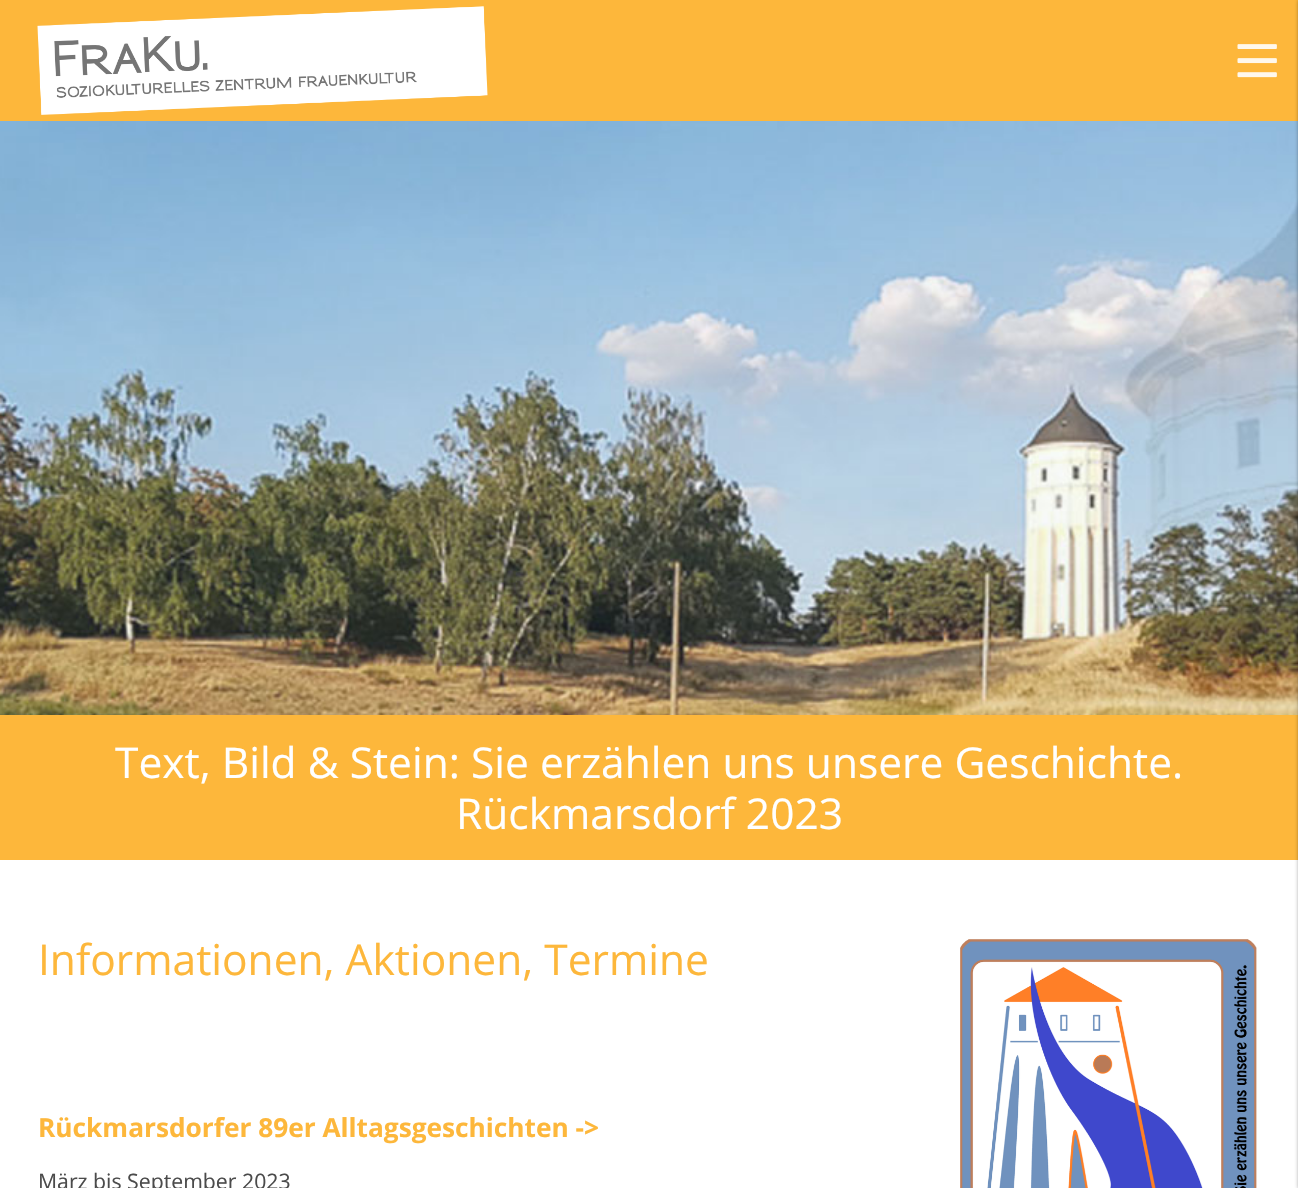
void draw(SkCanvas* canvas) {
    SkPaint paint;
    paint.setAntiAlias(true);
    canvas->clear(0xFFFFFFFF);
    paint.setColor(0xFFFDB73B);
    canvas->drawRect(SkRect::MakeXYWH(0, 0, 1298, 121), paint);
    canvas->drawImageRect(SkImages::DeferredFromEncodedData(SkData::MakeFromFileName("img1.png")), SkRect::MakeXYWH(37, 6, 451, 109), SkSamplingOptions());
    canvas->drawImageRect(SkImages::DeferredFromEncodedData(SkData::MakeFromFileName("img2.png")), SkRect::MakeXYWH(1237, 44, 40, 34), SkSamplingOptions());
    canvas->drawImageRect(SkImages::DeferredFromEncodedData(SkData::MakeFromFileName("img3.png")), SkRect::MakeXYWH(0, 121, 1298, 594), SkSamplingOptions());
    canvas->drawRect(SkRect::MakeXYWH(0, 715, 1298, 145), paint);
    paint.setColor(0x80000000);
    paint.setMaskFilter(SkMaskFilter::MakeBlur(kNormal_SkBlurStyle, 2));
    canvas->drawRect(SkRect::MakeXYWH(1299, 0, 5, 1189), paint);
    paint.setMaskFilter(nullptr);
    SkFont font1(fontMgr->matchFamilyStyle("Open Sans", SkFontStyle::Normal()), 42.5f);
    font1.setSubpixel(true);
    paint.setColor(0xFFFFFFFF);
    canvas->drawString("Text, Bild & Stein: Sie erzählen uns unsere Geschichte.", 115, 778, font1, paint);
    canvas->drawString("Rückmarsdorf 2023", 456, 829, font1, paint);
    paint.setColor(0xFFFDB73B);
    canvas->drawString("Informationen, Aktionen, Termine", 38, 975, font1, paint);
    canvas->drawImageRect(SkImages::DeferredFromEncodedData(SkData::MakeFromFileName("img4.png")), SkRect::MakeXYWH(960, 939, 297, 249), SkSamplingOptions());
    SkFont font2(fontMgr->matchFamilyStyle("Open Sans", SkFontStyle::Bold()), 26.25f);
    font2.setSubpixel(true);
    canvas->drawString("Rückmarsdorfer 89er Alltagsgeschichten ->", 38, 1137, font2, paint);
    SkFont font3(fontMgr->matchFamilyStyle("Open Sans", SkFontStyle::Normal()), 21.25f);
    font3.setSubpixel(true);
    paint.setColor(0xFF4B4B4B);
    canvas->drawString("März bis September 2023", 38, 1189, font3, paint);
}
